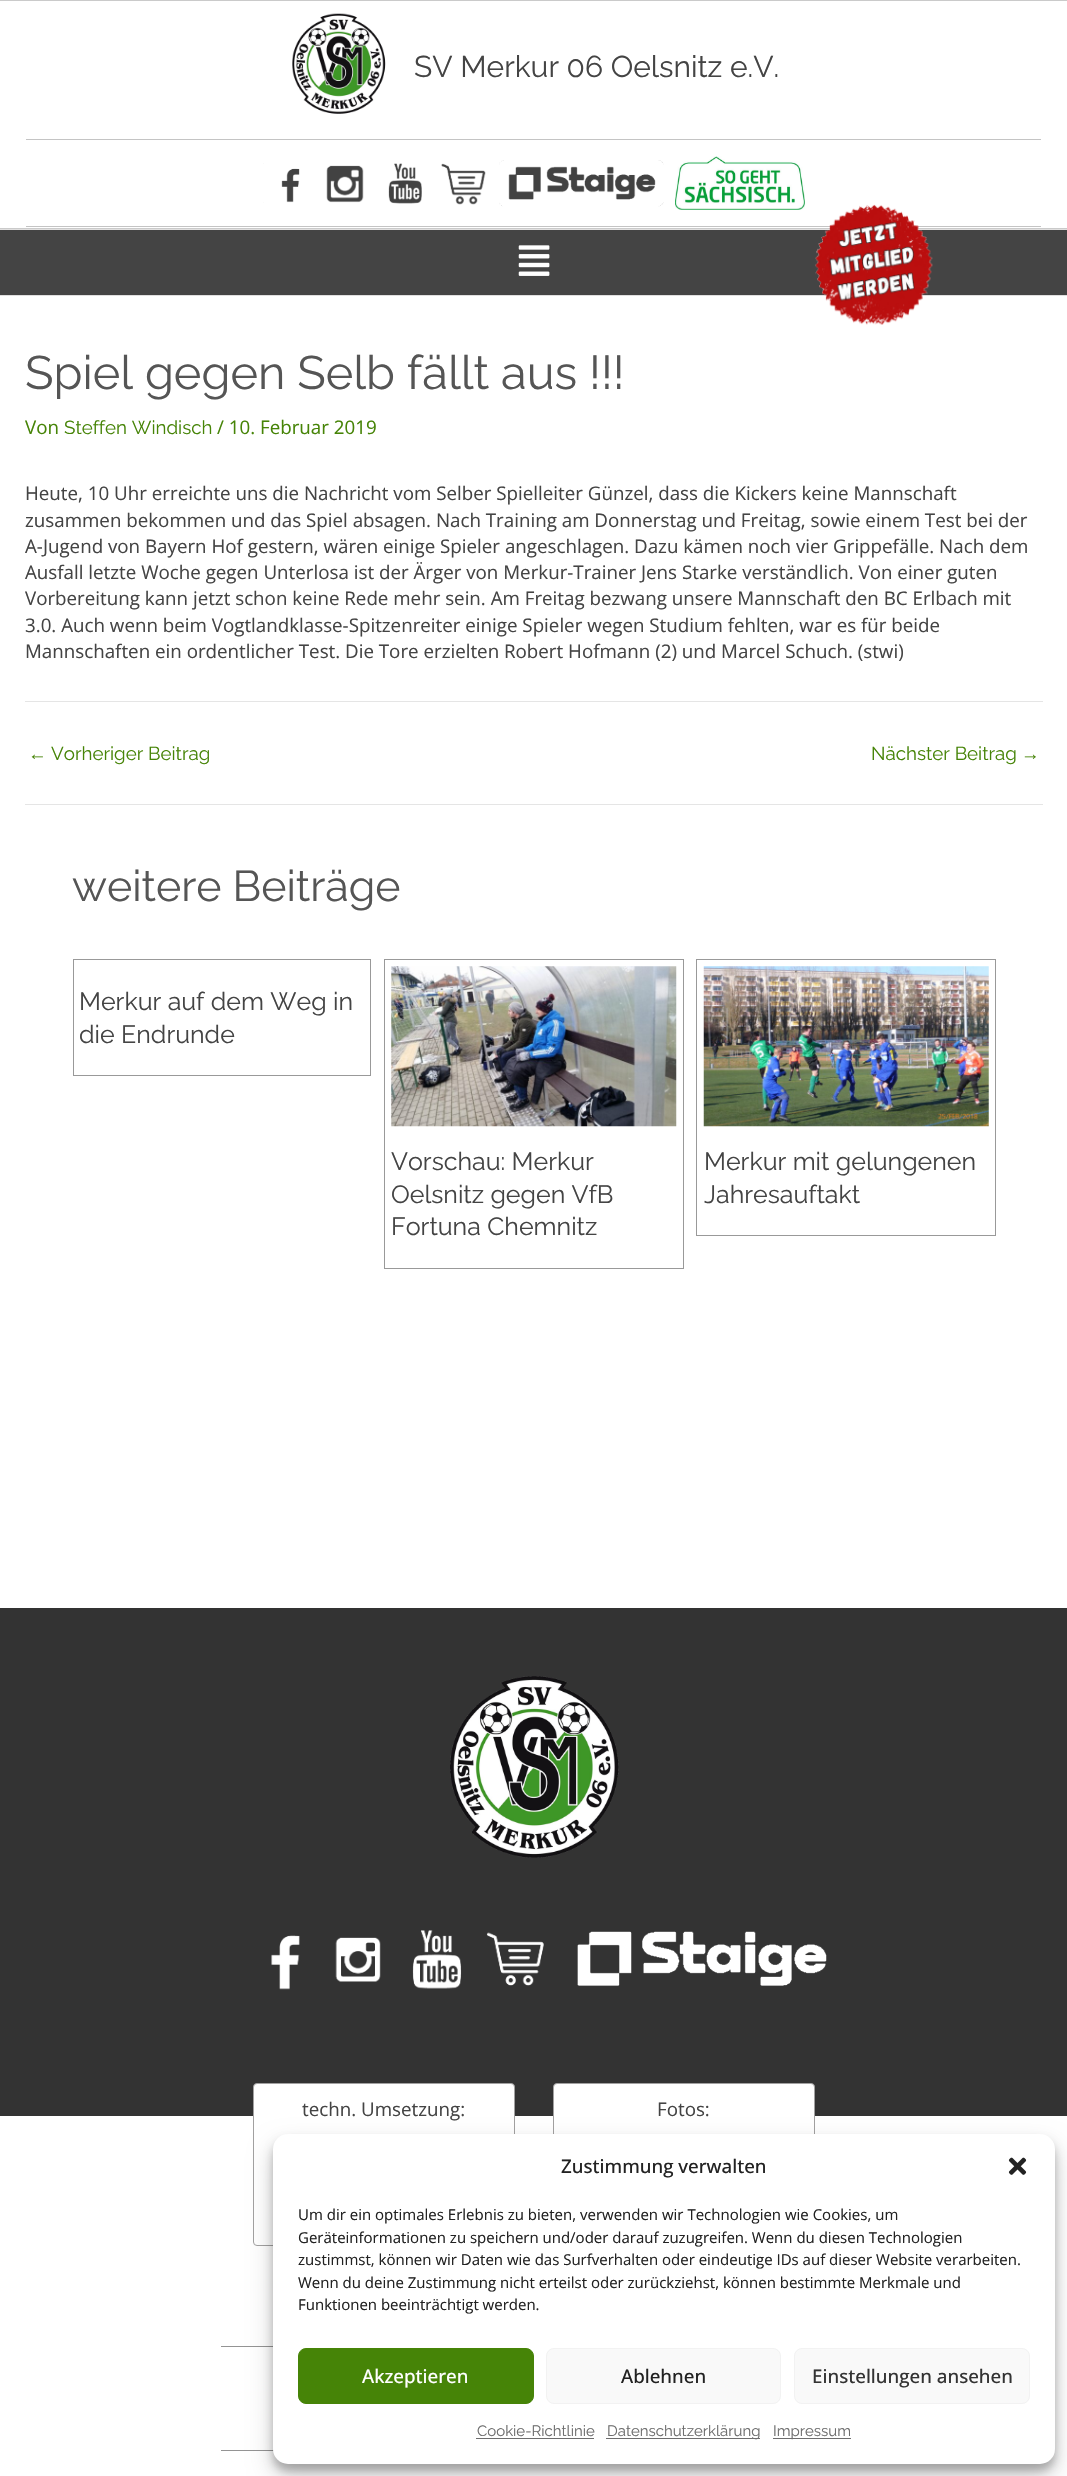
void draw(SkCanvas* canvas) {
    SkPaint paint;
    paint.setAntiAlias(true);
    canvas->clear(0xFFFFFFFF);
    paint.setColor(0xFFCACACA);
    canvas->drawRect(SkRect::MakeXYWH(0, 0, 1067, 1), paint);
    canvas->drawRect(SkRect::MakeXYWH(0, 228, 1067, 1), paint);
    canvas->drawImageRect(SkImages::DeferredFromEncodedData(SkData::MakeFromFileName("img1.png")), SkRect::MakeXYWH(292, 13, 94, 101), SkSamplingOptions());
    SkFont font1(fontMgr->matchFamilyStyle("Raleway", SkFontStyle::Normal()), 30);
    font1.setSubpixel(true);
    paint.setColor(0xFF444444);
    canvas->drawString("SV Merkur 06 Oelsnitz e.V.", 414, 77, font1, paint);
    paint.setColor(0xFFC4C4C4);
    canvas->drawRect(SkRect::MakeXYWH(26, 139, 1015, 1), paint);
    canvas->drawRect(SkRect::MakeXYWH(26, 226, 1015, 1), paint);
    canvas->drawImageRect(SkImages::DeferredFromEncodedData(SkData::MakeFromFileName("img2.png")), SkRect::MakeXYWH(263, 163, 37, 40), SkSamplingOptions());
    canvas->drawImageRect(SkImages::DeferredFromEncodedData(SkData::MakeFromFileName("img3.png")), SkRect::MakeXYWH(326, 165, 38, 38), SkSamplingOptions());
    canvas->drawImageRect(SkImages::DeferredFromEncodedData(SkData::MakeFromFileName("img4.png")), SkRect::MakeXYWH(388, 163, 34, 41), SkSamplingOptions());
    canvas->drawImageRect(SkImages::DeferredFromEncodedData(SkData::MakeFromFileName("img5.png")), SkRect::MakeXYWH(441, 163, 45, 42), SkSamplingOptions());
    canvas->drawImageRect(SkImages::DeferredFromEncodedData(SkData::MakeFromFileName("img6.png")), SkRect::MakeXYWH(499, 160, 165, 47), SkSamplingOptions());
    canvas->drawImageRect(SkImages::DeferredFromEncodedData(SkData::MakeFromFileName("img7.png")), SkRect::MakeXYWH(675, 156, 130, 54), SkSamplingOptions());
    paint.setColor(0xFF444444);
    canvas->drawRect(SkRect::MakeXYWH(0, 230, 1067, 65), paint);
    paint.setColor(0xFFE0DFDF);
    canvas->drawRect(SkRect::MakeXYWH(0, 229, 1067, 1), paint);
    canvas->drawRect(SkRect::MakeXYWH(0, 295, 1067, 1), paint);
    canvas->drawImageRect(SkImages::DeferredFromEncodedData(SkData::MakeFromFileName("img8.png")), SkRect::MakeXYWH(518, 245, 32, 31), SkSamplingOptions());
    canvas->drawImageRect(SkImages::DeferredFromEncodedData(SkData::MakeFromFileName("img9.png")), SkRect::MakeXYWH(815, 204, 118, 121), SkSamplingOptions());
    SkFont font2(fontMgr->matchFamilyStyle("Raleway", SkFontStyle::Normal()), 46.9f);
    font2.setSubpixel(true);
    paint.setColor(0xFF555555);
    canvas->drawString("Spiel gegen Selb fällt aus !!!", 25, 389, font2, paint);
    SkFont font3(fontMgr->matchFamilyStyle("Open Sans", SkFontStyle::Normal()), 18.75f);
    font3.setSubpixel(true);
    paint.setColor(0xFF468407);
    canvas->drawString("Von", 25, 434, font3, paint);
    SkFont font4(fontMgr->matchFamilyStyle("Raleway", SkFontStyle::Normal()), 18.75f);
    font4.setSubpixel(true);
    canvas->drawString("Steffen Windisch", 64, 434, font4, paint);
    canvas->drawString("/ 10. Februar 2019", 217, 434, font3, paint);
    paint.setColor(0xFF444444);
    canvas->drawString("Heute, 10 Uhr erreichte uns die Nachricht vom Selber Spielleiter Günzel, dass die Kickers keine Mannschaft", 25, 500, font3, paint);
    canvas->drawString("zusammen bekommen und das Spiel absagen. Nach Training am Donnerstag und Freitag, sowie einem Test bei der", 25, 527, font3, paint);
    canvas->drawString("A-Jugend von Bayern Hof gestern, wären einige Spieler angeschlagen. Dazu kämen noch vier Grippefälle. Nach dem", 25, 553, font3, paint);
    canvas->drawString("Ausfall letzte Woche gegen Unterlosa ist der Ärger von Merkur-Trainer Jens Starke verständlich. Von einer guten", 25, 579, font3, paint);
    canvas->drawString("Vorbereitung kann jetzt schon keine Rede mehr sein. Am Freitag bezwang unsere Mannschaft den BC Erlbach mit", 25, 605, font3, paint);
    canvas->drawString("3.0. Auch wenn beim Vogtlandklasse-Spitzenreiter einige Spieler wegen Studium fehlten, war es für beide", 25, 632, font3, paint);
    canvas->drawString("Mannschaften ein ordentlicher Test. Die Tore erzielten Robert Hofmann (2) und Marcel Schuch. (stwi)", 25, 658, font3, paint);
    paint.setColor(0xFFE5E5E5);
    canvas->drawRect(SkRect::MakeXYWH(25, 701, 1018, 1), paint);
    SkFont font5(fontMgr->matchFamilyStyle("Liberation Sans", SkFontStyle::Normal()), 18.75f);
    font5.setSubpixel(true);
    paint.setColor(0xFF468407);
    canvas->drawString("←", 28, 760, font5, paint);
    canvas->drawString("Vorheriger Beitrag", 51, 760, font4, paint);
    canvas->drawString("Nächster Beitrag", 871, 760, font4, paint);
    canvas->drawString("→", 1021, 760, font5, paint);
    paint.setColor(0xFFE5E5E5);
    canvas->drawRect(SkRect::MakeXYWH(25, 804, 1018, 1), paint);
    SkFont font6(fontMgr->matchFamilyStyle("Raleway", SkFontStyle::Normal()), 43);
    font6.setSubpixel(true);
    paint.setColor(0xFF555555);
    canvas->drawString("weitere Beiträge", 72, 901, font6, paint);
    paint.setStyle(SkPaint::kStroke_Style);
    paint.setStrokeWidth(1);
    paint.setColor(0xFF999999);
    canvas->drawRect(SkRect::MakeXYWH(73.5f, 959.5f, 297, 116), paint);
    SkFont font7(fontMgr->matchFamilyStyle("Raleway", SkFontStyle::Normal()), 25);
    font7.setSubpixel(true);
    paint.setStyle(SkPaint::kFill_Style);
    paint.setColor(0xFF444444);
    canvas->drawString("Merkur auf dem Weg in", 79, 1010, font7, paint);
    canvas->drawString("die Endrunde", 79, 1043, font7, paint);
    paint.setStyle(SkPaint::kStroke_Style);
    paint.setColor(0xFF999999);
    canvas->drawRect(SkRect::MakeXYWH(384.5f, 959.5f, 299, 309), paint);
    canvas->drawImageRect(SkImages::DeferredFromEncodedData(SkData::MakeFromFileName("img10.png")), SkRect::MakeXYWH(391, 966, 286, 161), SkSamplingOptions());
    paint.setStyle(SkPaint::kFill_Style);
    paint.setColor(0xFF444444);
    canvas->drawString("Vorschau: Merkur", 391, 1170, font7, paint);
    canvas->drawString("Oelsnitz gegen VfB", 391, 1203, font7, paint);
    canvas->drawString("Fortuna Chemnitz", 391, 1235, font7, paint);
    paint.setStyle(SkPaint::kStroke_Style);
    paint.setColor(0xFF999999);
    canvas->drawRect(SkRect::MakeXYWH(696.5f, 959.5f, 299, 276), paint);
    canvas->drawImageRect(SkImages::DeferredFromEncodedData(SkData::MakeFromFileName("img11.png")), SkRect::MakeXYWH(703, 966, 286, 161), SkSamplingOptions());
    paint.setStyle(SkPaint::kFill_Style);
    paint.setColor(0xFF444444);
    canvas->drawString("Merkur mit gelungenen", 704, 1170, font7, paint);
    canvas->drawString("Jahresauftakt", 704, 1203, font7, paint);
    paint.setColor(0xFF333333);
    canvas->drawRect(SkRect::MakeXYWH(0, 1608, 1067, 508), paint);
    canvas->drawImageRect(SkImages::DeferredFromEncodedData(SkData::MakeFromFileName("img12.png")), SkRect::MakeXYWH(450, 1676, 169, 182), SkSamplingOptions());
    canvas->drawImageRect(SkImages::DeferredFromEncodedData(SkData::MakeFromFileName("img13.png")), SkRect::MakeXYWH(271, 1935, 29, 55), SkSamplingOptions());
    canvas->drawImageRect(SkImages::DeferredFromEncodedData(SkData::MakeFromFileName("img14.png")), SkRect::MakeXYWH(335, 1937, 46, 45), SkSamplingOptions());
    canvas->drawImageRect(SkImages::DeferredFromEncodedData(SkData::MakeFromFileName("img15.png")), SkRect::MakeXYWH(412, 1930, 50, 59), SkSamplingOptions());
    canvas->drawImageRect(SkImages::DeferredFromEncodedData(SkData::MakeFromFileName("img16.png")), SkRect::MakeXYWH(486, 1932, 58, 54), SkSamplingOptions());
    canvas->drawImageRect(SkImages::DeferredFromEncodedData(SkData::MakeFromFileName("img17.png")), SkRect::MakeXYWH(577, 1931, 250, 55), SkSamplingOptions());
    paint.setColor(0xFFFFFFFF);
    canvas->drawRoundRect(SkRect::MakeXYWH(253.5f, 2083.5f, 261, 162), 3.5f, 3.5f, paint);
    paint.setStyle(SkPaint::kStroke_Style);
    paint.setColor(0xFFA2A1A1);
    canvas->drawRoundRect(SkRect::MakeXYWH(253.5f, 2083.5f, 261, 162), 3.5f, 3.5f, paint);
    paint.setStyle(SkPaint::kFill_Style);
    paint.setColor(0xFF444444);
    canvas->drawString("techn. Umsetzung:", 302, 2116, font3, paint);
    paint.setColor(0xFFFFFFFF);
    canvas->drawRoundRect(SkRect::MakeXYWH(553.5f, 2083.5f, 261, 162), 3.5f, 3.5f, paint);
    paint.setStyle(SkPaint::kStroke_Style);
    paint.setColor(0xFFA2A1A1);
    canvas->drawRoundRect(SkRect::MakeXYWH(553.5f, 2083.5f, 261, 162), 3.5f, 3.5f, paint);
    paint.setStyle(SkPaint::kFill_Style);
    paint.setColor(0xFF444444);
    canvas->drawString("Fotos:", 657, 2116, font3, paint);
    paint.setColor(0xFF949494);
    canvas->drawRect(SkRect::MakeXYWH(221, 2346, 52, 1), paint);
    canvas->drawRect(SkRect::MakeXYWH(221, 2450, 53, 1), paint);
    paint.setColor(0x3B000000);
    paint.setMaskFilter(SkMaskFilter::MakeBlur(kNormal_SkBlurStyle, 4));
    canvas->drawRoundRect(SkRect::MakeXYWH(273, 2141, 782, 330), 15, 15, paint);
    paint.setMaskFilter(nullptr);
    paint.setColor(0x30000000);
    paint.setMaskFilter(SkMaskFilter::MakeBlur(kNormal_SkBlurStyle, 12.5f));
    canvas->drawRoundRect(SkRect::MakeXYWH(273, 2146, 782, 330), 15, 15, paint);
    paint.setMaskFilter(nullptr);
    paint.setColor(0xFFFFFFFF);
    canvas->drawRoundRect(SkRect::MakeXYWH(273, 2134, 782, 330), 15, 15, paint);
    SkFont font8(fontMgr->matchFamilyStyle("Open Sans", SkFontStyle(500, SkFontStyle::kNormal_Width, SkFontStyle::kUpright_Slant)), 18.75f);
    font8.setSubpixel(true);
    paint.setColor(0xFF222222);
    canvas->drawString("Zustimmung verwalten", 561, 2173, font8, paint);
    canvas->drawImageRect(SkImages::DeferredFromEncodedData(SkData::MakeFromFileName("img18.png")), SkRect::MakeXYWH(1008, 2157, 19, 18), SkSamplingOptions());
    SkFont font9(fontMgr->matchFamilyStyle("Open Sans", SkFontStyle::Normal()), 15);
    font9.setSubpixel(true);
    canvas->drawString("Um dir ein optimales Erlebnis zu bieten, verwenden wir Technologien wie Cookies, um", 298, 2220, font9, paint);
    canvas->drawString("Geräteinformationen zu speichern und/oder darauf zuzugreifen. Wenn du diesen Technologien", 298, 2243, font9, paint);
    canvas->drawString("zustimmst, können wir Daten wie das Surfverhalten oder eindeutige IDs auf dieser Website verarbeiten.", 298, 2265, font9, paint);
    canvas->drawString("Wenn du deine Zustimmung nicht erteilst oder zurückziehst, können bestimmte Merkmale und", 298, 2288, font9, paint);
    canvas->drawString("Funktionen beeinträchtigt werden.", 298, 2310, font9, paint);
    paint.setColor(0xFF468407);
    canvas->drawRoundRect(SkRect::MakeXYWH(298.5f, 2348.5f, 235, 55), 7.5f, 7.5f, paint);
    paint.setStyle(SkPaint::kStroke_Style);
    canvas->drawRoundRect(SkRect::MakeXYWH(298.5f, 2348.5f, 235, 55), 7.5f, 7.5f, paint);
    paint.setStyle(SkPaint::kFill_Style);
    paint.setColor(0xFFFFFFFF);
    canvas->drawString("Akzeptieren", 362, 2383, font8, paint);
    paint.setColor(0xFFF9F9F9);
    canvas->drawRoundRect(SkRect::MakeXYWH(546.5f, 2348.5f, 234, 55), 7.5f, 7.5f, paint);
    paint.setStyle(SkPaint::kStroke_Style);
    paint.setColor(0xFFF2F2F2);
    canvas->drawRoundRect(SkRect::MakeXYWH(546.5f, 2348.5f, 234, 55), 7.5f, 7.5f, paint);
    paint.setStyle(SkPaint::kFill_Style);
    paint.setColor(0xFF222222);
    canvas->drawString("Ablehnen", 621, 2383, font8, paint);
    paint.setColor(0xFFF9F9F9);
    canvas->drawRoundRect(SkRect::MakeXYWH(794.5f, 2348.5f, 235, 55), 7.5f, 7.5f, paint);
    paint.setStyle(SkPaint::kStroke_Style);
    paint.setColor(0xFFF2F2F2);
    canvas->drawRoundRect(SkRect::MakeXYWH(794.5f, 2348.5f, 235, 55), 7.5f, 7.5f, paint);
    paint.setStyle(SkPaint::kFill_Style);
    paint.setColor(0xFF333333);
    canvas->drawString("Einstellungen ansehen", 812, 2383, font8, paint);
    SkFont font10(fontMgr->matchFamilyStyle("Raleway", SkFontStyle::Normal()), 15);
    font10.setSubpixel(true);
    paint.setColor(0xFF6D6D6D);
    canvas->drawString("Cookie-Richtlinie", 477, 2436, font10, paint);
    canvas->drawRect(SkRect::MakeXYWH(476, 2438, 118, 1), paint);
    canvas->drawRect(SkRect::MakeXYWH(606, 2438, 154, 1), paint);
    canvas->drawString("Datenschutzerklärung", 607, 2436, font10, paint);
    canvas->drawRect(SkRect::MakeXYWH(773, 2438, 78, 1), paint);
    canvas->drawString("Impressum", 773, 2436, font10, paint);
}
